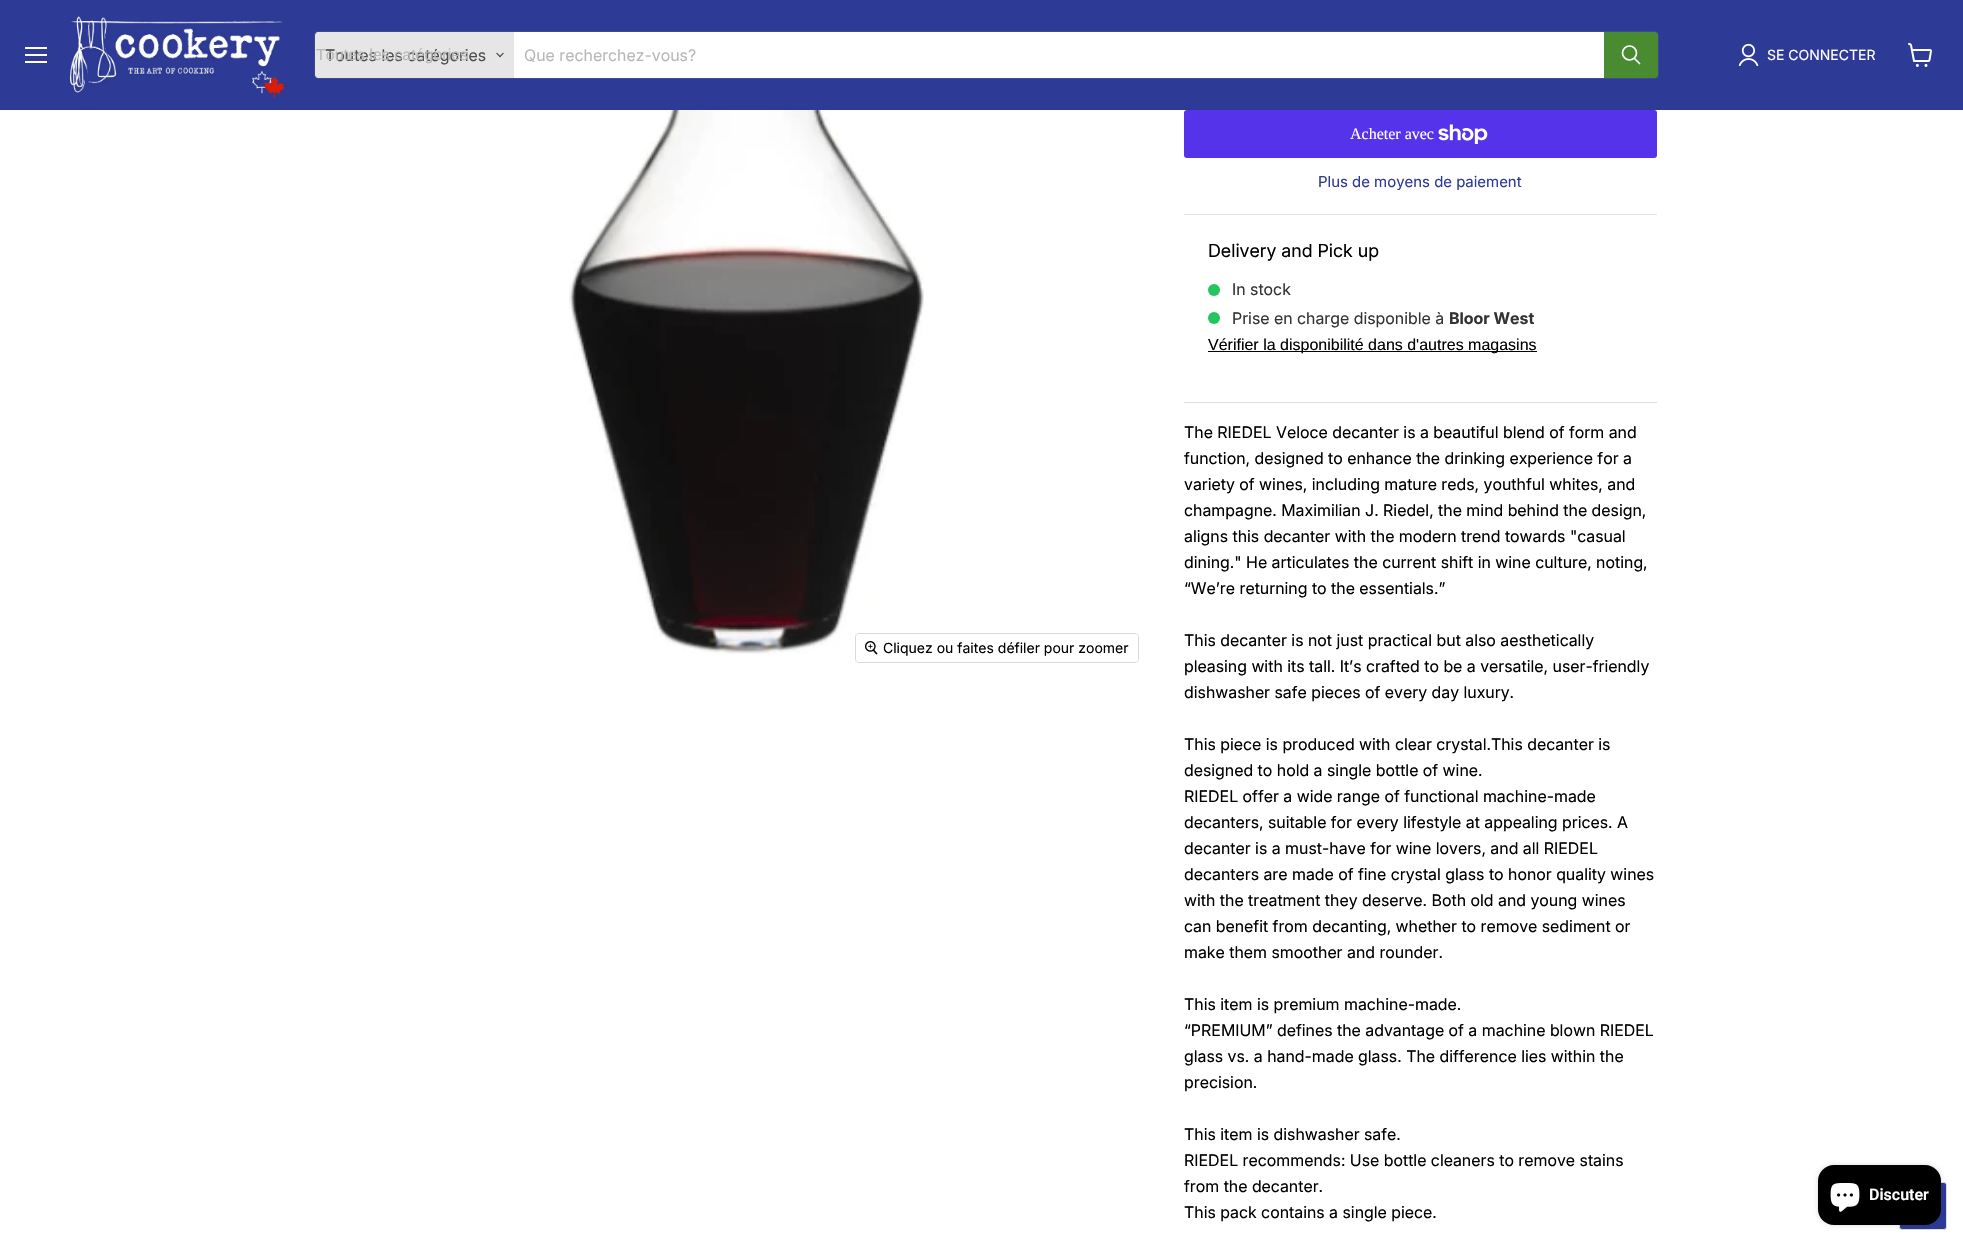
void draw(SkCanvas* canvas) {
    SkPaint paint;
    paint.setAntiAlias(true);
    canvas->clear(0xFFFFFFFF);
    paint.setColor(0xFF2D3A96);
    canvas->drawRect(SkRect::MakeXYWH(0, 0, 1963, 110), paint);
    paint.setColor(0xFFFFFFFF);
    canvas->drawRect(SkRect::MakeXYWH(25, 47, 22, 2), paint);
    canvas->drawRect(SkRect::MakeXYWH(25, 54, 22, 2), paint);
    canvas->drawRect(SkRect::MakeXYWH(25, 61, 22, 2), paint);
    canvas->drawImageRect(SkImages::DeferredFromEncodedData(SkData::MakeFromFileName("img1.png")), SkRect::MakeXYWH(69, 15, 219, 85), SkSamplingOptions());
    paint.setStyle(SkPaint::kStroke_Style);
    paint.setStrokeWidth(1);
    paint.setColor(0x33808080);
    canvas->drawRoundRect(SkRect::MakeXYWH(314.5f, 31.5f, 1344, 47), 3.5f, 3.5f, paint);
    paint.setStyle(SkPaint::kFill_Style);
    paint.setColor(0xFFE6E6E6);
    canvas->drawPath(SkPathBuilder().moveTo(318, 32).lineTo(514, 32).lineTo(514, 78).lineTo(318, 78).cubicTo(316.5f, 78, 315, 76.5f, 315, 75).lineTo(315, 35).cubicTo(315, 33.5f, 316.5f, 32, 318, 32).close().detach(), paint);
    SkFont font1(fontMgr->matchFamilyStyle("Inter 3", SkFontStyle::Normal()), 16);
    font1.setSubpixel(true);
    paint.setColor(0xFF4D4D4D);
    canvas->drawString("Toutes les catégories", 325, 61, font1, paint);
    SkFont font2(fontMgr->matchFamilyStyle("Liberation Sans", SkFontStyle::Normal()), 16);
    font2.setSubpixel(true);
    paint.setColor(0xFFB8B8B8);
    canvas->drawString("Toutes les catégories", 316, 60, font2, paint);
    canvas->drawImageRect(SkImages::DeferredFromEncodedData(SkData::MakeFromFileName("img2.png")), SkRect::MakeXYWH(496, 52, 8, 6), SkSamplingOptions());
    paint.setColor(0xFFFFFFFF);
    canvas->drawRect(SkRect::MakeXYWH(514, 32, 1090, 46), paint);
    paint.setColor(0xFFB8B8B8);
    canvas->drawString("Que recherchez-vous?", 524, 61, font1, paint);
    paint.setColor(0xFF488B31);
    canvas->drawPath(SkPathBuilder().moveTo(1604.5f, 32.5f).lineTo(1655, 32.5f).cubicTo(1656.5f, 32.5f, 1657.5f, 33.5f, 1657.5f, 35).lineTo(1657.5f, 75).cubicTo(1657.5f, 76.5f, 1656.5f, 77.5f, 1655, 77.5f).lineTo(1604.5f, 77.5f).close().detach(), paint);
    paint.setStyle(SkPaint::kStroke_Style);
    canvas->drawPath(SkPathBuilder().moveTo(1604.5f, 32.5f).lineTo(1655, 32.5f).cubicTo(1656.5f, 32.5f, 1657.5f, 33.5f, 1657.5f, 35).lineTo(1657.5f, 75).cubicTo(1657.5f, 76.5f, 1656.5f, 77.5f, 1655, 77.5f).lineTo(1604.5f, 77.5f).close().detach(), paint);
    paint.setStrokeWidth(1.7f);
    paint.setStrokeCap(SkPaint::kRound_Cap);
    paint.setColor(0xFFFFFFFF);
    canvas->drawPath(SkPathBuilder().moveTo(1639.5f, 63.5f).lineTo(1634.5f, 58.5f).detach(), paint);
    paint.setStrokeCap(SkPaint::kButt_Cap);
    canvas->drawCircle(1629.5f, 53, 7, paint);
    canvas->drawImageRect(SkImages::DeferredFromEncodedData(SkData::MakeFromFileName("img3.png")), SkRect::MakeXYWH(1738, 43, 21, 24), SkSamplingOptions());
    SkFont font3(fontMgr->matchFamilyStyle("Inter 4", SkFontStyle::Normal()), 14);
    font3.setSubpixel(true);
    paint.setStyle(SkPaint::kFill_Style);
    canvas->drawString("SE CONNECTER", 1767, 60, font3, paint);
    canvas->drawImageRect(SkImages::DeferredFromEncodedData(SkData::MakeFromFileName("img4.png")), SkRect::MakeXYWH(1908, 43, 24, 24), SkSamplingOptions());
    canvas->drawImageRect(SkImages::DeferredFromEncodedData(SkData::MakeFromFileName("img5.png")), SkRect::MakeXYWH(569, 110, 355, 545), SkSamplingOptions());
    paint.setStyle(SkPaint::kStroke_Style);
    paint.setStrokeWidth(1);
    paint.setColor(0xFFD9D9D9);
    canvas->drawRoundRect(SkRect::MakeXYWH(855.5f, 633.5f, 283, 29), 3.5f, 3.5f, paint);
    paint.setStyle(SkPaint::kFill_Style);
    paint.setColor(0xE6FFFFFF);
    canvas->drawRoundRect(SkRect::MakeXYWH(856, 634, 282, 28), 3, 3, paint);
    canvas->drawImageRect(SkImages::DeferredFromEncodedData(SkData::MakeFromFileName("img6.png")), SkRect::MakeXYWH(865, 641, 13, 14), SkSamplingOptions());
    paint.setColor(0xFF000000);
    canvas->drawString("Cliquez ou faites défiler pour zoomer", 883, 653, font3, paint);
    paint.setColor(0xFF5433EB);
    canvas->drawRoundRect(SkRect::MakeXYWH(1184, 110, 473, 48), 3, 3, paint);
    SkFont font4(fontMgr->matchFamilyStyle("Liberation Serif", SkFontStyle::Normal()), 16);
    font4.setSubpixel(true);
    paint.setColor(0xFFFFFFFF);
    canvas->drawString("Acheter avec", 1350, 139, font4, paint);
    canvas->drawImageRect(SkImages::DeferredFromEncodedData(SkData::MakeFromFileName("img7.png")), SkRect::MakeXYWH(1438, 124, 50, 20), SkSamplingOptions());
    SkFont font5(fontMgr->matchFamilyStyle("Inter", SkFontStyle::Normal()), 15);
    font5.setSubpixel(true);
    paint.setColor(0xFF2D3A96);
    canvas->drawString("Plus de moyens de paiement", 1318, 187, font5, paint);
    paint.setColor(0xFFE5E5E5);
    canvas->drawRect(SkRect::MakeXYWH(1184, 214, 473, 1), paint);
    SkFont font6(fontMgr->matchFamilyStyle("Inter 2", SkFontStyle::Normal()), 18);
    font6.setSubpixel(true);
    paint.setColor(0xFF000000);
    canvas->drawString("Delivery and Pick up", 1208, 257, font6, paint);
    paint.setColor(0xFF22C55E);
    canvas->drawCircle(1214, 290, 6, paint);
    paint.setColor(0xFF333333);
    canvas->drawString("In stock", 1232, 295, font1, paint);
    paint.setColor(0xFF22C55E);
    canvas->drawCircle(1214, 318, 6, paint);
    paint.setColor(0xFF333333);
    canvas->drawString("Prise en charge disponible à", 1232, 324, font1, paint);
    SkFont font7(fontMgr->matchFamilyStyle("Inter", SkFontStyle::Bold()), 16);
    font7.setSubpixel(true);
    canvas->drawString("Bloor West", 1449, 324, font7, paint);
    paint.setColor(0xFF000000);
    canvas->drawRect(SkRect::MakeXYWH(1208, 351, 329, 1), paint);
    canvas->drawString("Vérifier la disponibilité dans d'autres magasins", 1208, 350, font2, paint);
    paint.setColor(0xFFDDDDDD);
    canvas->drawRect(SkRect::MakeXYWH(1184, 402, 473, 1), paint);
    paint.setColor(0xFF000000);
    canvas->drawString("The RIEDEL Veloce decanter is a beautiful blend of form and", 1184, 438, font1, paint);
    canvas->drawString("function, designed to enhance the drinking experience for a", 1184, 464, font1, paint);
    canvas->drawString("variety of wines, including mature reds, youthful whites, and", 1184, 490, font1, paint);
    canvas->drawString("champagne. Maximilian J. Riedel, the mind behind the design,", 1184, 516, font1, paint);
    canvas->drawString("aligns this decanter with the modern trend towards \"casual", 1184, 542, font1, paint);
    canvas->drawString("dining.\" He articulates the current shift in wine culture, noting,", 1184, 568, font1, paint);
    canvas->drawString("“We’re returning to the essentials.”", 1184, 594, font1, paint);
    canvas->drawString("This decanter is not just practical but also aesthetically", 1184, 646, font1, paint);
    canvas->drawString("pleasing with its tall. It’s crafted to be a versatile, user-friendly", 1184, 672, font1, paint);
    canvas->drawString("dishwasher safe pieces of every day luxury.", 1184, 698, font1, paint);
    canvas->drawString("This piece is produced with clear crystal.This decanter is", 1184, 750, font1, paint);
    canvas->drawString("designed to hold a single bottle of wine.", 1184, 776, font1, paint);
    canvas->drawString("RIEDEL offer a wide range of functional machine-made", 1184, 802, font1, paint);
    canvas->drawString("decanters, suitable for every lifestyle at appealing prices. A", 1184, 828, font1, paint);
    canvas->drawString("decanter is a must-have for wine lovers, and all RIEDEL", 1184, 854, font1, paint);
    canvas->drawString("decanters are made of fine crystal glass to honor quality wines", 1184, 880, font1, paint);
    canvas->drawString("with the treatment they deserve. Both old and young wines", 1184, 906, font1, paint);
    canvas->drawString("can benefit from decanting, whether to remove sediment or", 1184, 932, font1, paint);
    canvas->drawString("make them smoother and rounder.", 1184, 958, font1, paint);
    canvas->drawString("This item is premium machine-made.", 1184, 1010, font1, paint);
    canvas->drawString("“PREMIUM” defines the advantage of a machine blown RIEDEL", 1184, 1036, font1, paint);
    canvas->drawString("glass vs. a hand-made glass. The difference lies within the", 1184, 1062, font1, paint);
    canvas->drawString("precision.", 1184, 1088, font1, paint);
    canvas->drawString("This item is dishwasher safe.", 1184, 1140, font1, paint);
    canvas->drawString("RIEDEL recommends: Use bottle cleaners to remove stains", 1184, 1166, font1, paint);
    canvas->drawString("from the decanter.", 1184, 1192, font1, paint);
    canvas->drawString("This pack contains a single piece.", 1184, 1218, font1, paint);
    paint.setColor(0xFF2D3A96);
    canvas->drawRoundRect(SkRect::MakeXYWH(1899.5f, 1182.5f, 47, 47), 2.5f, 2.5f, paint);
    paint.setStyle(SkPaint::kStroke_Style);
    paint.setColor(0xFFDDDDDD);
    canvas->drawRoundRect(SkRect::MakeXYWH(1899.5f, 1182.5f, 47, 47), 2.5f, 2.5f, paint);
    paint.setStyle(SkPaint::kFill_Style);
    paint.setColor(0x26000000);
    paint.setMaskFilter(SkMaskFilter::MakeBlur(kNormal_SkBlurStyle, 2.5f));
    canvas->drawRoundRect(SkRect::MakeXYWH(1818, 1165, 123, 60), 16, 16, paint);
    paint.setMaskFilter(nullptr);
    paint.setColor(0xFF000000);
    canvas->drawRoundRect(SkRect::MakeXYWH(1818, 1165, 123, 60), 16, 16, paint);
    canvas->drawImageRect(SkImages::DeferredFromEncodedData(SkData::MakeFromFileName("img8.png")), SkRect::MakeXYWH(1830, 1183, 30, 29), SkSamplingOptions());
    SkFont font8(fontMgr->matchFamilyStyle("Roboto", SkFontStyle(600, SkFontStyle::kNormal_Width, SkFontStyle::kUpright_Slant)), 16);
    font8.setSubpixel(true);
    paint.setColor(0xFFFFFFFF);
    canvas->drawString("Discuter", 1869, 1200, font8, paint);
}
